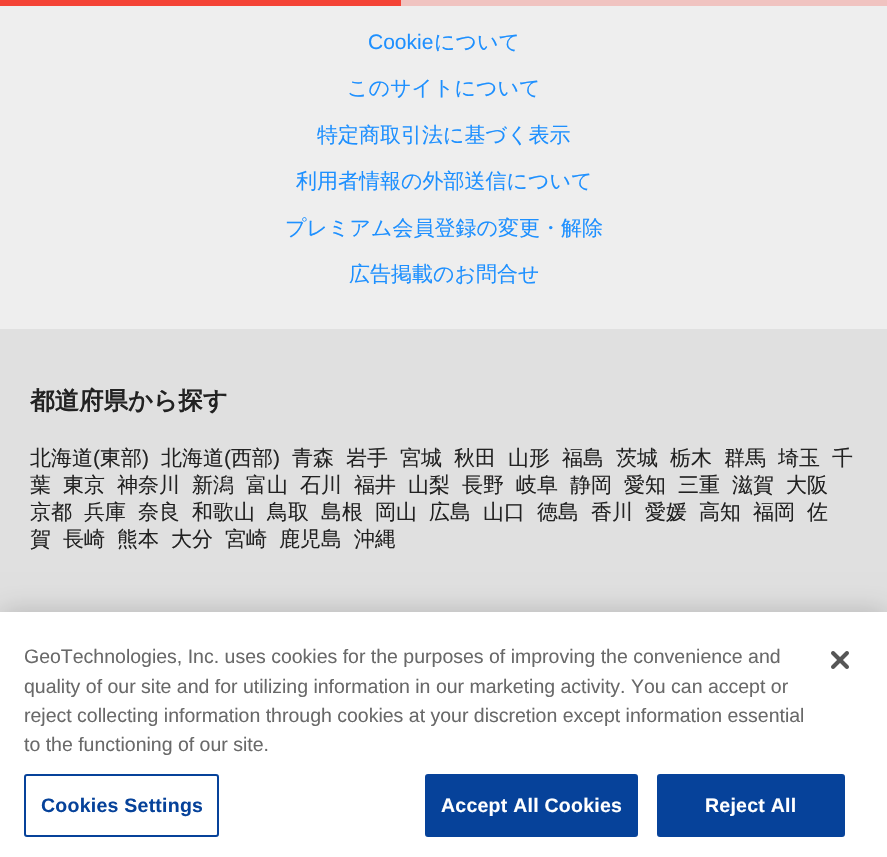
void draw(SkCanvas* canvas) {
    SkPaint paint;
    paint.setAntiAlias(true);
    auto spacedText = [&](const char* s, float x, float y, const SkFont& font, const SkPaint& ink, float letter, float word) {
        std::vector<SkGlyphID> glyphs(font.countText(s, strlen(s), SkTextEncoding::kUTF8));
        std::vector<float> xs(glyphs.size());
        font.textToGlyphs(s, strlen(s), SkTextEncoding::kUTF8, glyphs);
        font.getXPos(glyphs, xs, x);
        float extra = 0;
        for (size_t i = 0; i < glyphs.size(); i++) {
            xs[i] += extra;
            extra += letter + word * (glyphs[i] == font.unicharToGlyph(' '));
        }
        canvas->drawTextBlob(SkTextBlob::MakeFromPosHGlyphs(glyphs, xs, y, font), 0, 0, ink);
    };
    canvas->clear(0xFFEEEEEE);
    paint.setColor(0xFFF44336);
    canvas->drawRect(SkRect::MakeXYWH(0, 0, 401, 6), paint);
    paint.setColor(0xFFF0C3C0);
    canvas->drawRect(SkRect::MakeXYWH(401, 0, 486, 6), paint);
    SkFont font1(fontMgr->matchFamilyStyle("Liberation Sans", SkFontStyle::Normal()), 21);
    font1.setSubpixel(true);
    paint.setColor(0xFF1E90FF);
    canvas->drawString("Cookie", 368, 49, font1, paint);
    SkFont font2(fontMgr->matchFamilyStyle("WenQuanYi Zen Hei", SkFontStyle(500, SkFontStyle::kNormal_Width, SkFontStyle::kUpright_Slant)), 21);
    font2.setSubpixel(true);
    canvas->drawString("について", 434, 49, font2, paint);
    canvas->drawString("このサイトについて", 347, 95, font2, paint);
    canvas->drawString("特定商取引法に基づく表示", 317, 142, font2, paint);
    canvas->drawString("利用者情報の外部送信について", 296, 188, font2, paint);
    canvas->drawString("プレミアム会員登録の変更・解除", 285, 235, font2, paint);
    canvas->drawString("広告掲載のお問合せ", 349, 281, font2, paint);
    paint.setColor(0xFFE0E0E0);
    canvas->drawRect(SkRect::MakeXYWH(0, 329, 887, 283), paint);
    SkFont font3(fontMgr->matchFamilyStyle("WenQuanYi Zen Hei", SkFontStyle::Bold()), 24.5f);
    font3.setSubpixel(true);
    paint.setColor(0xFF222222);
    canvas->drawString("都道府県から探す", 30, 409, font3, paint);
    canvas->drawString("北海道", 30, 465, font2, paint);
    canvas->drawString("(", 93, 465, font1, paint);
    canvas->drawString("東部", 100, 465, font2, paint);
    canvas->drawString(")", 142, 465, font1, paint);
    canvas->drawString("北海道", 161, 465, font2, paint);
    canvas->drawString("(", 224, 465, font1, paint);
    canvas->drawString("西部", 231, 465, font2, paint);
    canvas->drawString(")", 273, 465, font1, paint);
    canvas->drawString("青森", 292, 465, font2, paint);
    canvas->drawString("岩手", 346, 465, font2, paint);
    canvas->drawString("宮城", 400, 465, font2, paint);
    canvas->drawString("秋田", 454, 465, font2, paint);
    canvas->drawString("山形", 508, 465, font2, paint);
    canvas->drawString("福島", 562, 465, font2, paint);
    canvas->drawString("茨城", 616, 465, font2, paint);
    canvas->drawString("栃木", 670, 465, font2, paint);
    canvas->drawString("群馬", 724, 465, font2, paint);
    canvas->drawString("埼玉", 778, 465, font2, paint);
    canvas->drawString("千", 832, 465, font2, paint);
    canvas->drawString("葉", 30, 492, font2, paint);
    canvas->drawString("東京", 63, 492, font2, paint);
    canvas->drawString("神奈川", 117, 492, font2, paint);
    canvas->drawString("新潟", 192, 492, font2, paint);
    canvas->drawString("富山", 246, 492, font2, paint);
    canvas->drawString("石川", 300, 492, font2, paint);
    canvas->drawString("福井", 354, 492, font2, paint);
    canvas->drawString("山梨", 408, 492, font2, paint);
    canvas->drawString("長野", 462, 492, font2, paint);
    canvas->drawString("岐阜", 516, 492, font2, paint);
    canvas->drawString("静岡", 570, 492, font2, paint);
    canvas->drawString("愛知", 624, 492, font2, paint);
    canvas->drawString("三重", 678, 492, font2, paint);
    canvas->drawString("滋賀", 732, 492, font2, paint);
    canvas->drawString("大阪", 786, 492, font2, paint);
    canvas->drawString("京都", 30, 519, font2, paint);
    canvas->drawString("兵庫", 84, 519, font2, paint);
    canvas->drawString("奈良", 138, 519, font2, paint);
    canvas->drawString("和歌山", 192, 519, font2, paint);
    canvas->drawString("鳥取", 267, 519, font2, paint);
    canvas->drawString("島根", 321, 519, font2, paint);
    canvas->drawString("岡山", 375, 519, font2, paint);
    canvas->drawString("広島", 429, 519, font2, paint);
    canvas->drawString("山口", 483, 519, font2, paint);
    canvas->drawString("徳島", 537, 519, font2, paint);
    canvas->drawString("香川", 591, 519, font2, paint);
    canvas->drawString("愛媛", 645, 519, font2, paint);
    canvas->drawString("高知", 699, 519, font2, paint);
    canvas->drawString("福岡", 753, 519, font2, paint);
    canvas->drawString("佐", 807, 519, font2, paint);
    canvas->drawString("賀", 30, 546, font2, paint);
    canvas->drawString("長崎", 63, 546, font2, paint);
    canvas->drawString("熊本", 117, 546, font2, paint);
    canvas->drawString("大分", 171, 546, font2, paint);
    canvas->drawString("宮崎", 225, 546, font2, paint);
    canvas->drawString("鹿児島", 279, 546, font2, paint);
    canvas->drawString("沖縄", 354, 546, font2, paint);
    paint.setColor(0x33000000);
    paint.setMaskFilter(SkMaskFilter::MakeBlur(kNormal_SkBlurStyle, 13.5f));
    canvas->drawRect(SkRect::MakeXYWH(0, 612, 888, 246), paint);
    paint.setMaskFilter(nullptr);
    paint.setColor(0xFFFFFFFF);
    canvas->drawRect(SkRect::MakeXYWH(0, 612, 887, 245), paint);
    SkFont font4(fontMgr->matchFamilyStyle("Liberation Sans", SkFontStyle::Normal()), 19.5f);
    font4.setSubpixel(true);
    paint.setColor(0xFF696969);
    canvas->drawString("GeoTechnologies, Inc. uses cookies for the purposes of improving the convenience and", 24, 663, font4, paint);
    canvas->drawString("quality of our site and for utilizing information in our marketing activity. You can accept or", 24, 693, font4, paint);
    canvas->drawString("reject collecting information through cookies at your discretion except information essential", 24, 722, font4, paint);
    canvas->drawString("to the functioning of our site.", 24, 751, font4, paint);
    paint.setStyle(SkPaint::kStroke_Style);
    paint.setStrokeWidth(2);
    paint.setColor(0xFF06429A);
    canvas->drawRoundRect(SkRect::MakeXYWH(25, 775, 193, 61), 2, 2, paint);
    SkFont font5(fontMgr->matchFamilyStyle("Liberation Sans", SkFontStyle::Bold()), 19.5f);
    font5.setSubpixel(true);
    paint.setStyle(SkPaint::kFill_Style);
    spacedText("Cookies Settings", 41, 812, font5, paint, 0.25f, 0);
    canvas->drawRoundRect(SkRect::MakeXYWH(426, 775, 211, 61), 2, 2, paint);
    paint.setStyle(SkPaint::kStroke_Style);
    canvas->drawRoundRect(SkRect::MakeXYWH(426, 775, 211, 61), 2, 2, paint);
    paint.setStyle(SkPaint::kFill_Style);
    paint.setColor(0xFFFFFFFF);
    spacedText("Accept All Cookies", 441, 812, font5, paint, 0.25f, 0);
    paint.setColor(0xFF06429A);
    canvas->drawRoundRect(SkRect::MakeXYWH(658, 775, 186, 61), 2, 2, paint);
    paint.setStyle(SkPaint::kStroke_Style);
    canvas->drawRoundRect(SkRect::MakeXYWH(658, 775, 186, 61), 2, 2, paint);
    paint.setStyle(SkPaint::kFill_Style);
    paint.setColor(0xFFFFFFFF);
    spacedText("Reject All", 705, 812, font5, paint, 0.25f, 0);
    canvas->drawImageRect(SkImages::DeferredFromEncodedData(SkData::MakeFromFileName("img1.png")), SkRect::MakeXYWH(831, 651, 18, 18), SkSamplingOptions());
}
